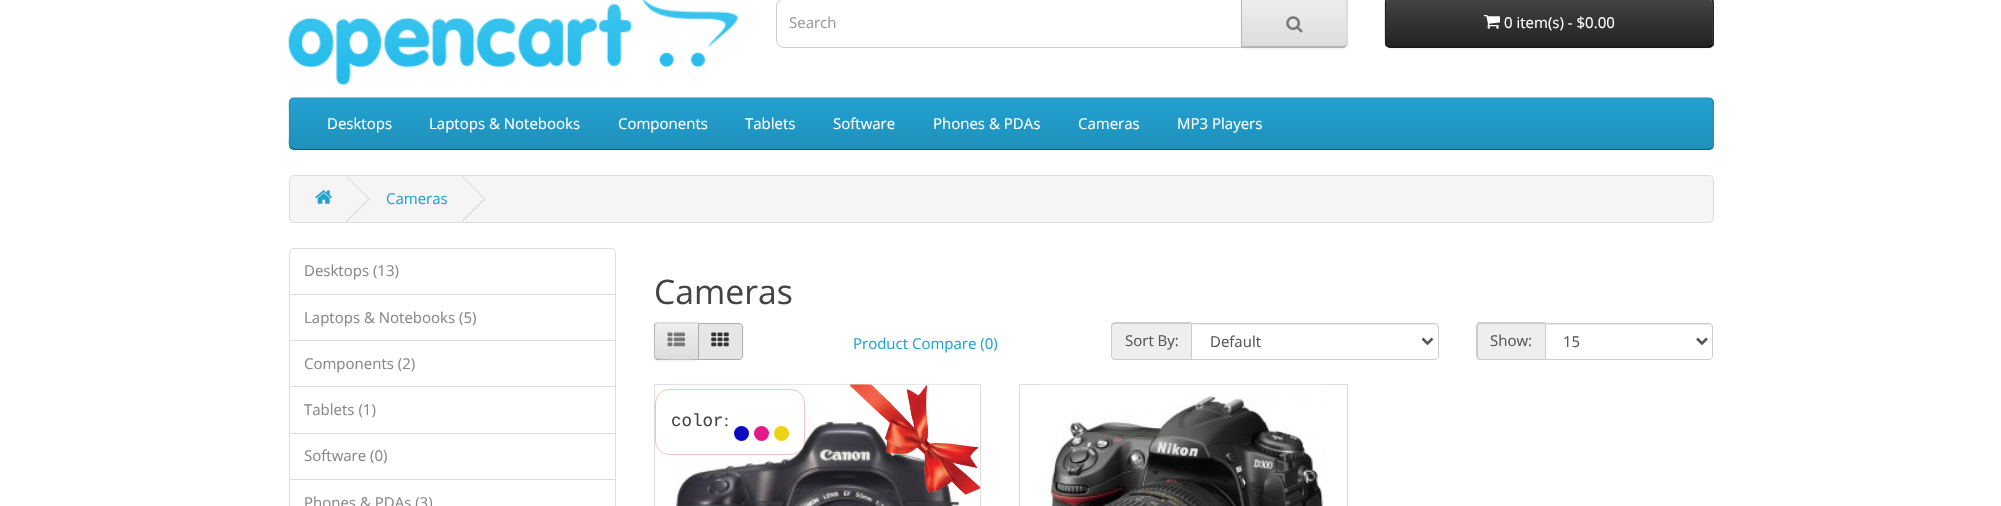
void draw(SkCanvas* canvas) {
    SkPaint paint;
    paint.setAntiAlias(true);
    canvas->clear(0xFFFFFFFF);
    canvas->drawImageRect(SkImages::DeferredFromEncodedData(SkData::MakeFromFileName("img1.png")), SkRect::MakeXYWH(288, 0, 450, 85), SkSamplingOptions());
    paint.setColor(0xFFECECEC);
    canvas->drawPath(SkPathBuilder().moveTo(784, 0).lineTo(1241, 0).lineTo(1241, -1).lineTo(784, -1).cubicTo(780, -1, 778, 2, 778, 6).cubicTo(778, 3, 780, 0, 784, 0).close().detach(), paint);
    paint.setStyle(SkPaint::kStroke_Style);
    paint.setStrokeWidth(1);
    paint.setColor(0xFFCCCCCC);
    canvas->drawPath(SkPathBuilder().moveTo(784, -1.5f).lineTo(1242.5f, -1.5f).lineTo(1242.5f, 47.5f).lineTo(784, 47.5f).cubicTo(780, 47.5f, 776.5f, 44, 776.5f, 40).lineTo(776.5f, 6).cubicTo(776.5f, 2, 780, -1.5f, 784, -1.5f).close().detach(), paint);
    SkFont font1(fontMgr->matchFamilyStyle("Open Sans", SkFontStyle::Normal()), 15);
    font1.setSubpixel(true);
    paint.setStyle(SkPaint::kFill_Style);
    paint.setColor(0xFF999999);
    canvas->drawString("Search", 789, 28, font1, paint);
    paint.setColor(0x0D000000);
    paint.setMaskFilter(SkMaskFilter::MakeBlur(kNormal_SkBlurStyle, 1));
    canvas->drawRoundRect(SkRect::MakeXYWH(1241, -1, 107, 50), 5, 5, paint);
    paint.setMaskFilter(nullptr);
    paint.setColor(0xFFE7E7E7);
    canvas->drawPath(SkPathBuilder().moveTo(1241, -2).lineTo(1343, -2).cubicTo(1346, -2, 1348, 0, 1348, 3).lineTo(1348, 43).cubicTo(1348, 46, 1346, 48, 1343, 48).lineTo(1241, 48).close().detach(), paint);
    canvas->save();
    canvas->clipPath(SkPathBuilder().moveTo(1241, -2).lineTo(1343, -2).cubicTo(1346, -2, 1348, 0, 1348, 3).lineTo(1348, 43).cubicTo(1348, 46, 1346, 48, 1343, 48).lineTo(1241, 48).close().detach(), true);
    {
        const SkColor colors[] = {0xFFEEEEEE, 0xFFDDDDDD};
        const float stops[] = {0, 1};
        const SkPoint ends[] = {{1294, -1.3f}, {1294, 46}};
        paint.setShader(SkGradientShader::MakeLinear(ends, colors, stops, 2, SkTileMode::kClamp));
        paint.setAlpha(255);
    }
    canvas->drawRect(SkRect::MakeXYWH(1242, 0, 106, 46), paint);
    canvas->restore();
    paint.setShader(nullptr);
    paint.setColor(0xFFF1F1F1);
    canvas->drawPath(SkPathBuilder().moveTo(1243, -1).lineTo(1243, 0).lineTo(1342, 0).cubicTo(1345, 0, 1346, 2, 1346, 4).cubicTo(1346, 1, 1345, -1, 1342, -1).close().detach(), paint);
    paint.setColor(0xFFDDDDDD);
    canvas->drawPath(SkPathBuilder().moveTo(1348, 44).lineTo(1346, 46).lineTo(1345, 45).cubicTo(1347, 43, 1346, 1, 1345, 0).lineTo(1346, -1).lineTo(1348, 1).close().detach(), paint);
    paint.setColor(0xFFB3B3B3);
    canvas->drawPath(SkPathBuilder().moveTo(1346, 46).lineTo(1344, 48).lineTo(1241, 48).lineTo(1243, 46).lineTo(1343, 46).lineTo(1345, 45).close().detach(), paint);
    paint.setColor(0xFFB7B7B7);
    canvas->drawPath(SkPathBuilder().moveTo(1242, -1).lineTo(1243, -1).lineTo(1241, -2).lineTo(1241, 48).lineTo(1243, 46).lineTo(1242, 46).close().detach(), paint);
    canvas->drawImageRect(SkImages::DeferredFromEncodedData(SkData::MakeFromFileName("img2.png")), SkRect::MakeXYWH(1286, 16, 17, 17), SkSamplingOptions());
    paint.setColor(0x0D000000);
    paint.setMaskFilter(SkMaskFilter::MakeBlur(kNormal_SkBlurStyle, 1));
    canvas->drawRoundRect(SkRect::MakeXYWH(1385, -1, 329, 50), 5, 5, paint);
    paint.setMaskFilter(nullptr);
    paint.setColor(0xFF363636);
    canvas->drawRoundRect(SkRect::MakeXYWH(1385, -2, 329, 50), 5, 5, paint);
    canvas->save();
    canvas->clipPath(SkPathBuilder().moveTo(1390, -2).lineTo(1709, -2).cubicTo(1712, -2, 1714, 0, 1714, 3).lineTo(1714, 43).cubicTo(1714, 46, 1712, 48, 1709, 48).lineTo(1390, 48).cubicTo(1387, 48, 1385, 46, 1385, 43).lineTo(1385, 3).cubicTo(1385, 0, 1387, -2, 1390, -2).close().detach(), true);
    {
        const SkColor colors[] = {0xFF444444, 0xFF222222};
        const float stops[] = {0, 1};
        const SkPoint ends[] = {{1549, -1.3f}, {1549, 46}};
        paint.setShader(SkGradientShader::MakeLinear(ends, colors, stops, 2, SkTileMode::kClamp));
        paint.setAlpha(255);
    }
    canvas->drawRect(SkRect::MakeXYWH(1385, 0, 329, 46), paint);
    canvas->restore();
    paint.setShader(nullptr);
    paint.setColor(0x33FFFFFF);
    canvas->drawPath(SkPathBuilder().moveTo(1390, 0).lineTo(1709, 0).cubicTo(1711, 0, 1712, 2, 1712, 4).lineTo(1712, 45).cubicTo(1713, 44, 1713, 43, 1713, 42).lineTo(1713, 3).cubicTo(1713, 1, 1711, -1, 1709, -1).lineTo(1390, -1).cubicTo(1388, -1, 1386, 1, 1386, 3).lineTo(1386, 4).cubicTo(1386, 2, 1388, 0, 1390, 0).close().detach(), paint);
    paint.setStyle(SkPaint::kStroke_Style);
    paint.setStrokeWidth(1.2f);
    paint.setColor(0xFF000000);
    canvas->drawPath(SkPathBuilder().moveTo(1712, 45.5f).cubicTo(1711, 46.5f, 1710, 47, 1709, 47).lineTo(1390, 47).cubicTo(1389, 47, 1387.5f, 46.5f, 1387, 45.5f).detach(), paint);
    paint.setColor(0xFF222222);
    canvas->drawPath(SkPathBuilder().moveTo(1387, 45.5f).cubicTo(1386, 45, 1385.5f, 43.5f, 1385.5f, 42.5f).lineTo(1385.5f, 2.5f).cubicTo(1385.5f, 1.5f, 1386, 0, 1387, -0.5f).cubicTo(1387.5f, -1.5f, 1389, -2, 1390, -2).lineTo(1709, -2).cubicTo(1710, -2, 1711, -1.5f, 1712, -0.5f).cubicTo(1712.5f, 0, 1713, 1.5f, 1713, 2.5f).lineTo(1713, 42.5f).cubicTo(1713, 43.5f, 1712.5f, 45, 1712, 45.5f).detach(), paint);
    canvas->drawImageRect(SkImages::DeferredFromEncodedData(SkData::MakeFromFileName("img3.png")), SkRect::MakeXYWH(1483, 15, 17, 14), SkSamplingOptions());
    paint.setStyle(SkPaint::kFill_Style);
    paint.setColor(0xFFFFFFFF);
    canvas->drawString("0 item(s) - $0.00", 1504, 28, font1, paint);
    paint.setColor(0xFF229AC8);
    canvas->drawRoundRect(SkRect::MakeXYWH(289, 98, 1425, 52), 5, 5, paint);
    canvas->save();
    canvas->clipPath(SkPathBuilder().moveTo(294, 98).lineTo(1709, 98).cubicTo(1712, 98, 1714, 100, 1714, 103).lineTo(1714, 145).cubicTo(1714, 148, 1712, 150, 1709, 150).lineTo(294, 150).cubicTo(291, 150, 289, 148, 289, 145).lineTo(289, 103).cubicTo(289, 100, 291, 98, 294, 98).close().detach(), true);
    {
        const SkColor colors[] = {0xFF23A1D1, 0xFF1F90BB};
        const float stops[] = {0, 1};
        const SkPoint ends[] = {{1001, 99}, {1001, 149}};
        paint.setShader(SkGradientShader::MakeLinear(ends, colors, stops, 2, SkTileMode::kClamp));
        paint.setAlpha(255);
    }
    canvas->drawRect(SkRect::MakeXYWH(289, 99, 1425, 50), paint);
    canvas->restore();
    paint.setStyle(SkPaint::kStroke_Style);
    paint.setShader(nullptr);
    paint.setColor(0xFF145E7A);
    canvas->drawPath(SkPathBuilder().moveTo(1712, 148).lineTo(1709, 149.5f).lineTo(294, 149.5f).lineTo(290.5f, 148).detach(), paint);
    paint.setColor(0xFF1F90BB);
    canvas->drawPath(SkPathBuilder().moveTo(290.5f, 148).cubicTo(288.5f, 145.5f, 289.5f, 140, 289.5f, 138).lineTo(289.5f, 109.5f).cubicTo(289.5f, 106.5f, 288, 98, 294, 98).lineTo(1709, 98).cubicTo(1714.5f, 98, 1713, 106.5f, 1713, 109.5f).lineTo(1713, 138).cubicTo(1713, 140, 1714, 145.5f, 1712, 148).detach(), paint);
    paint.setStyle(SkPaint::kFill_Style);
    paint.setColor(0xFFFFFFFF);
    canvas->drawString("Desktops", 327, 129, font1, paint);
    canvas->drawString("Laptops & Notebooks", 429, 129, font1, paint);
    canvas->drawString("Components", 618, 129, font1, paint);
    canvas->drawString("Tablets", 745, 129, font1, paint);
    canvas->drawString("Software", 833, 129, font1, paint);
    canvas->drawString("Phones & PDAs", 933, 129, font1, paint);
    canvas->drawString("Cameras", 1078, 129, font1, paint);
    canvas->drawString("MP3 Players", 1177, 129, font1, paint);
    paint.setColor(0xFFF5F5F5);
    canvas->drawRoundRect(SkRect::MakeXYWH(289.5f, 175.5f, 1424, 47), 4.5f, 4.5f, paint);
    paint.setStyle(SkPaint::kStroke_Style);
    paint.setStrokeWidth(1);
    paint.setColor(0xFFDDDDDD);
    canvas->drawRoundRect(SkRect::MakeXYWH(289.5f, 175.5f, 1424, 47), 4.5f, 4.5f, paint);
    canvas->drawImageRect(SkImages::DeferredFromEncodedData(SkData::MakeFromFileName("img4.png")), SkRect::MakeXYWH(315, 190, 18, 14), SkSamplingOptions());
    paint.setStyle(SkPaint::kFill_Style);
    canvas->drawPath(SkPathBuilder().moveTo(346, 176.5f).lineTo(347, 176).lineTo(370, 199).lineTo(369, 199.5f).close().detach(), paint);
    canvas->drawPath(SkPathBuilder().moveTo(346, 221).lineTo(369, 198).lineTo(370, 199).lineTo(347, 222).close().detach(), paint);
    paint.setColor(0xFF23A1D1);
    canvas->drawString("Cameras", 386, 204, font1, paint);
    paint.setColor(0xFFDDDDDD);
    canvas->drawPath(SkPathBuilder().moveTo(461.5f, 176.5f).lineTo(462.5f, 176).lineTo(485.5f, 199).lineTo(484.5f, 199.5f).close().detach(), paint);
    canvas->drawPath(SkPathBuilder().moveTo(461.5f, 221).lineTo(484.5f, 198).lineTo(485.5f, 199).lineTo(462.5f, 222).close().detach(), paint);
    paint.setStyle(SkPaint::kStroke_Style);
    canvas->drawPath(SkPathBuilder().moveTo(294, 248.5f).lineTo(611, 248.5f).cubicTo(613.5f, 248.5f, 615.5f, 250.5f, 615.5f, 253).lineTo(615.5f, 294.5f).lineTo(289.5f, 294.5f).lineTo(289.5f, 253).cubicTo(289.5f, 250.5f, 291.5f, 248.5f, 294, 248.5f).close().detach(), paint);
    paint.setStyle(SkPaint::kFill_Style);
    paint.setColor(0xFF888888);
    canvas->drawString("Desktops (13)", 304, 276, font1, paint);
    paint.setStyle(SkPaint::kStroke_Style);
    paint.setColor(0xFFDDDDDD);
    canvas->drawRect(SkRect::MakeXYWH(289.5f, 294.5f, 326, 46), paint);
    paint.setStyle(SkPaint::kFill_Style);
    paint.setColor(0xFF888888);
    canvas->drawString("Laptops & Notebooks (5)", 304, 323, font1, paint);
    paint.setStyle(SkPaint::kStroke_Style);
    paint.setColor(0xFFDDDDDD);
    canvas->drawRect(SkRect::MakeXYWH(289.5f, 340.5f, 326, 47), paint);
    paint.setStyle(SkPaint::kFill_Style);
    paint.setColor(0xFF888888);
    canvas->drawString("Components (2)", 304, 369, font1, paint);
    paint.setColor(0xFFFFFFFF);
    canvas->drawRect(SkRect::MakeXYWH(290, 387, 325, 1), paint);
    paint.setStyle(SkPaint::kStroke_Style);
    paint.setColor(0xFFDDDDDD);
    canvas->drawRect(SkRect::MakeXYWH(289.5f, 386.5f, 326, 47), paint);
    paint.setStyle(SkPaint::kFill_Style);
    paint.setColor(0xFF888888);
    canvas->drawString("Tablets (1)", 304, 415, font1, paint);
    paint.setStyle(SkPaint::kStroke_Style);
    paint.setColor(0xFFDDDDDD);
    canvas->drawRect(SkRect::MakeXYWH(289.5f, 433.5f, 326, 46), paint);
    paint.setStyle(SkPaint::kFill_Style);
    paint.setColor(0xFF888888);
    canvas->drawString("Software (0)", 304, 461, font1, paint);
    paint.setStyle(SkPaint::kStroke_Style);
    paint.setColor(0xFFDDDDDD);
    canvas->drawRect(SkRect::MakeXYWH(289.5f, 479.5f, 326, 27), paint);
    paint.setStyle(SkPaint::kFill_Style);
    paint.setColor(0xFF888888);
    canvas->drawString("Phones & PDAs (3)", 304, 508, font1, paint);
    SkFont font2(fontMgr->matchFamilyStyle("Open Sans", SkFontStyle::Normal()), 33.75f);
    font2.setSubpixel(true);
    paint.setColor(0xFF444444);
    canvas->drawString("Cameras", 654, 304, font2, paint);
    paint.setColor(0x0D000000);
    paint.setMaskFilter(SkMaskFilter::MakeBlur(kNormal_SkBlurStyle, 1));
    canvas->drawRoundRect(SkRect::MakeXYWH(654, 324, 45, 37), 4, 4, paint);
    paint.setMaskFilter(nullptr);
    paint.setColor(0xFFE7E7E7);
    canvas->drawPath(SkPathBuilder().moveTo(658, 323).lineTo(699, 323).lineTo(699, 360).lineTo(658, 360).cubicTo(656, 360, 654, 358, 654, 356).lineTo(654, 327).cubicTo(654, 325, 656, 323, 658, 323).close().detach(), paint);
    canvas->save();
    canvas->clipPath(SkPathBuilder().moveTo(658, 323).lineTo(699, 323).lineTo(699, 360).lineTo(658, 360).cubicTo(656, 360, 654, 358, 654, 356).lineTo(654, 327).cubicTo(654, 325, 656, 323, 658, 323).close().detach(), true);
    {
        const SkColor colors[] = {0xFFEEEEEE, 0xFFDDDDDD};
        const float stops[] = {0, 1};
        const SkPoint ends[] = {{676, 324}, {676, 359}};
        paint.setShader(SkGradientShader::MakeLinear(ends, colors, stops, 2, SkTileMode::kClamp));
        paint.setAlpha(255);
    }
    canvas->drawRect(SkRect::MakeXYWH(654, 324, 44, 35), paint);
    canvas->restore();
    paint.setShader(nullptr);
    paint.setColor(0xFFF1F1F1);
    canvas->drawPath(SkPathBuilder().moveTo(658, 325).lineTo(698, 325).lineTo(698, 324).lineTo(658, 324).cubicTo(656, 324, 655, 325, 655, 326).lineTo(655, 328).cubicTo(655, 326, 656, 325, 658, 325).close().detach(), paint);
    paint.setColor(0xFFDDDDDD);
    canvas->drawPath(SkPathBuilder().moveTo(658, 324).lineTo(656, 325).lineTo(655, 323).lineTo(656, 322).lineTo(699, 322).lineTo(697, 324).close().detach(), paint);
    canvas->drawPath(SkPathBuilder().moveTo(699, 322.5f).lineTo(697, 324).lineTo(698, 324).lineTo(698, 359).lineTo(699, 360).close().detach(), paint);
    paint.setColor(0xFFB3B3B3);
    canvas->drawPath(SkPathBuilder().moveTo(699, 360).lineTo(698, 359).cubicTo(693, 359, 657, 360, 656, 358).lineTo(655, 359).cubicTo(656, 360, 657, 360, 658, 360).close().detach(), paint);
    paint.setColor(0xFFB7B7B7);
    canvas->drawPath(SkPathBuilder().moveTo(655, 359).cubicTo(654.5f, 358, 654, 357, 654, 356).lineTo(654, 326).cubicTo(654, 325, 654, 324, 654.5f, 323.5f).lineTo(656, 324.5f).lineTo(655, 326).lineTo(655, 351).cubicTo(655, 351.5f, 654.5f, 356.5f, 655.5f, 358).close().detach(), paint);
    canvas->drawImageRect(SkImages::DeferredFromEncodedData(SkData::MakeFromFileName("img5.png")), SkRect::MakeXYWH(667, 332, 18, 15), SkSamplingOptions());
    paint.setColor(0xFFE6E6E6);
    canvas->drawPath(SkPathBuilder().moveTo(698.5f, 323.5f).lineTo(739, 323.5f).cubicTo(741, 323.5f, 742.5f, 325, 742.5f, 327).lineTo(742.5f, 356).cubicTo(742.5f, 358, 741, 359.5f, 739, 359.5f).lineTo(698.5f, 359.5f).close().detach(), paint);
    paint.setStyle(SkPaint::kStroke_Style);
    paint.setColor(0xFFADADAD);
    canvas->drawPath(SkPathBuilder().moveTo(698.5f, 323.5f).lineTo(739, 323.5f).cubicTo(741, 323.5f, 742.5f, 325, 742.5f, 327).lineTo(742.5f, 356).cubicTo(742.5f, 358, 741, 359.5f, 739, 359.5f).lineTo(698.5f, 359.5f).close().detach(), paint);
    canvas->drawImageRect(SkImages::DeferredFromEncodedData(SkData::MakeFromFileName("img6.png")), SkRect::MakeXYWH(711, 332, 18, 15), SkSamplingOptions());
    paint.setStyle(SkPaint::kFill_Style);
    paint.setColor(0xFF23A1D1);
    canvas->drawString("Product Compare (0)", 853, 349, font1, paint);
    paint.setColor(0xFFEEEEEE);
    canvas->drawPath(SkPathBuilder().moveTo(1115, 323).lineTo(1191, 323).lineTo(1191, 360).lineTo(1115, 360).cubicTo(1113, 360, 1111, 358, 1111, 356).lineTo(1111, 327).cubicTo(1111, 325, 1113, 323, 1115, 323).close().detach(), paint);
    paint.setColor(0xFFCCCCCC);
    canvas->drawPath(SkPathBuilder(SkPathFillType::kEvenOdd).moveTo(1115, 322).lineTo(1191, 322).lineTo(1191, 360).lineTo(1115, 360).cubicTo(1113, 360, 1111, 358, 1111, 356).lineTo(1111, 326).cubicTo(1111, 324, 1113, 322, 1115, 322).close().moveTo(1115, 324).lineTo(1191, 324).lineTo(1191, 359).lineTo(1115, 359).cubicTo(1114, 359, 1112, 358, 1112, 356).lineTo(1112, 326).cubicTo(1112, 325, 1114, 324, 1115, 324).close().detach(), paint);
    paint.setColor(0xFF555555);
    canvas->drawString("Sort By:", 1125, 346, font1, paint);
    paint.setColor(0xFFECECEC);
    canvas->drawPath(SkPathBuilder().moveTo(1193, 324).lineTo(1193, 325).lineTo(1435, 325).cubicTo(1436, 325, 1438, 326, 1438, 328).cubicTo(1438, 326, 1438, 324, 1436, 324).close().detach(), paint);
    paint.setStyle(SkPaint::kStroke_Style);
    paint.setColor(0xFFCCCCCC);
    canvas->drawPath(SkPathBuilder().moveTo(1191.5f, 323.5f).lineTo(1435, 323.5f).cubicTo(1437, 323.5f, 1438.5f, 325, 1438.5f, 327).lineTo(1438.5f, 356).cubicTo(1438.5f, 358, 1437, 359.5f, 1435, 359.5f).lineTo(1191.5f, 359.5f).close().detach(), paint);
    paint.setStrokeWidth(2.5f);
    paint.setColor(0xFF555555);
    canvas->drawPath(SkPathBuilder().moveTo(1422.5f, 338.5f).lineTo(1427.5f, 343.5f).lineTo(1432.5f, 338.5f).detach(), paint);
    paint.setStyle(SkPaint::kFill_Style);
    canvas->drawString("Default", 1210, 347, font1, paint);
    paint.setColor(0xFFEEEEEE);
    canvas->drawPath(SkPathBuilder().moveTo(1480, 323).lineTo(1545, 323).lineTo(1545, 360).lineTo(1480, 360).cubicTo(1478, 360, 1476, 358, 1476, 356).lineTo(1476, 327).cubicTo(1476, 325, 1478, 323, 1480, 323).close().detach(), paint);
    paint.setColor(0xFFCCCCCC);
    canvas->drawPath(SkPathBuilder(SkPathFillType::kEvenOdd).moveTo(1480, 322).lineTo(1545, 322).lineTo(1545, 360).lineTo(1480, 360).cubicTo(1478, 360, 1476, 358, 1476, 356).lineTo(1476, 326).cubicTo(1476, 324, 1478, 322, 1480, 322).close().moveTo(1480, 324).lineTo(1545, 324).lineTo(1545, 359).lineTo(1480, 359).cubicTo(1479, 359, 1478, 358, 1478, 356).lineTo(1478, 326).cubicTo(1478, 325, 1479, 324, 1480, 324).close().detach(), paint);
    paint.setColor(0xFF555555);
    canvas->drawString("Show:", 1490, 346, font1, paint);
    paint.setColor(0xFFECECEC);
    canvas->drawPath(SkPathBuilder().moveTo(1546, 325).lineTo(1709, 325).cubicTo(1710, 325, 1711, 326, 1711, 328).cubicTo(1711, 326, 1711, 324, 1708, 324).lineTo(1546, 324).close().detach(), paint);
    paint.setStyle(SkPaint::kStroke_Style);
    paint.setStrokeWidth(1);
    paint.setColor(0xFFCCCCCC);
    canvas->drawPath(SkPathBuilder().moveTo(1545.5f, 323.5f).lineTo(1709, 323.5f).cubicTo(1711, 323.5f, 1712.5f, 325, 1712.5f, 327).lineTo(1712.5f, 356).cubicTo(1712.5f, 358, 1711, 359.5f, 1709, 359.5f).lineTo(1545.5f, 359.5f).close().detach(), paint);
    paint.setStrokeWidth(2.5f);
    paint.setColor(0xFF555555);
    canvas->drawPath(SkPathBuilder().moveTo(1697, 338.5f).lineTo(1702, 343.5f).lineTo(1707, 338.5f).detach(), paint);
    paint.setStyle(SkPaint::kFill_Style);
    canvas->drawString("15", 1563, 347, font1, paint);
    paint.setStyle(SkPaint::kStroke_Style);
    paint.setStrokeWidth(1);
    paint.setColor(0xFFDDDDDD);
    canvas->drawRect(SkRect::MakeXYWH(654.5f, 384.5f, 326, 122), paint);
    canvas->drawImageRect(SkImages::DeferredFromEncodedData(SkData::MakeFromFileName("img7.png")), SkRect::MakeXYWH(675, 384, 285, 122), SkSamplingOptions());
    paint.setStyle(SkPaint::kFill_Style);
    paint.setColor(0xFFFFFFFF);
    canvas->drawRoundRect(SkRect::MakeXYWH(655.5f, 389.5f, 149, 65), 13.5f, 13.5f, paint);
    paint.setStyle(SkPaint::kStroke_Style);
    paint.setColor(0xFFECC5C5);
    canvas->drawRoundRect(SkRect::MakeXYWH(655.5f, 389.5f, 149, 65), 13.5f, 13.5f, paint);
    SkFont font3(fontMgr->matchFamilyStyle("Liberation Mono", SkFontStyle::Normal()), 17.5f);
    font3.setSubpixel(true);
    paint.setStyle(SkPaint::kFill_Style);
    paint.setColor(0xFF444444);
    canvas->drawString("color", 671, 426, font3, paint);
    SkFont font4(fontMgr->matchFamilyStyle("Liberation Serif", SkFontStyle::Normal()), 17.5f);
    font4.setSubpixel(true);
    canvas->drawString(":", 724, 426, font4, paint);
    paint.setColor(0xFF0B0BBF);
    canvas->drawCircle(741.5f, 433.5f, 7.5f, paint);
    paint.setColor(0xFFE21A89);
    canvas->drawCircle(761.5f, 433.5f, 7.5f, paint);
    paint.setColor(0xFFECD211);
    canvas->drawCircle(781.5f, 433.5f, 7.5f, paint);
    canvas->drawImageRect(SkImages::DeferredFromEncodedData(SkData::MakeFromFileName("img8.png")), SkRect::MakeXYWH(849, 384, 131, 111), SkSamplingOptions());
    paint.setStyle(SkPaint::kStroke_Style);
    paint.setColor(0xFFDDDDDD);
    canvas->drawRect(SkRect::MakeXYWH(1019.5f, 384.5f, 328, 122), paint);
    canvas->drawImageRect(SkImages::DeferredFromEncodedData(SkData::MakeFromFileName("img9.png")), SkRect::MakeXYWH(1041, 384, 285, 122), SkSamplingOptions());
}
